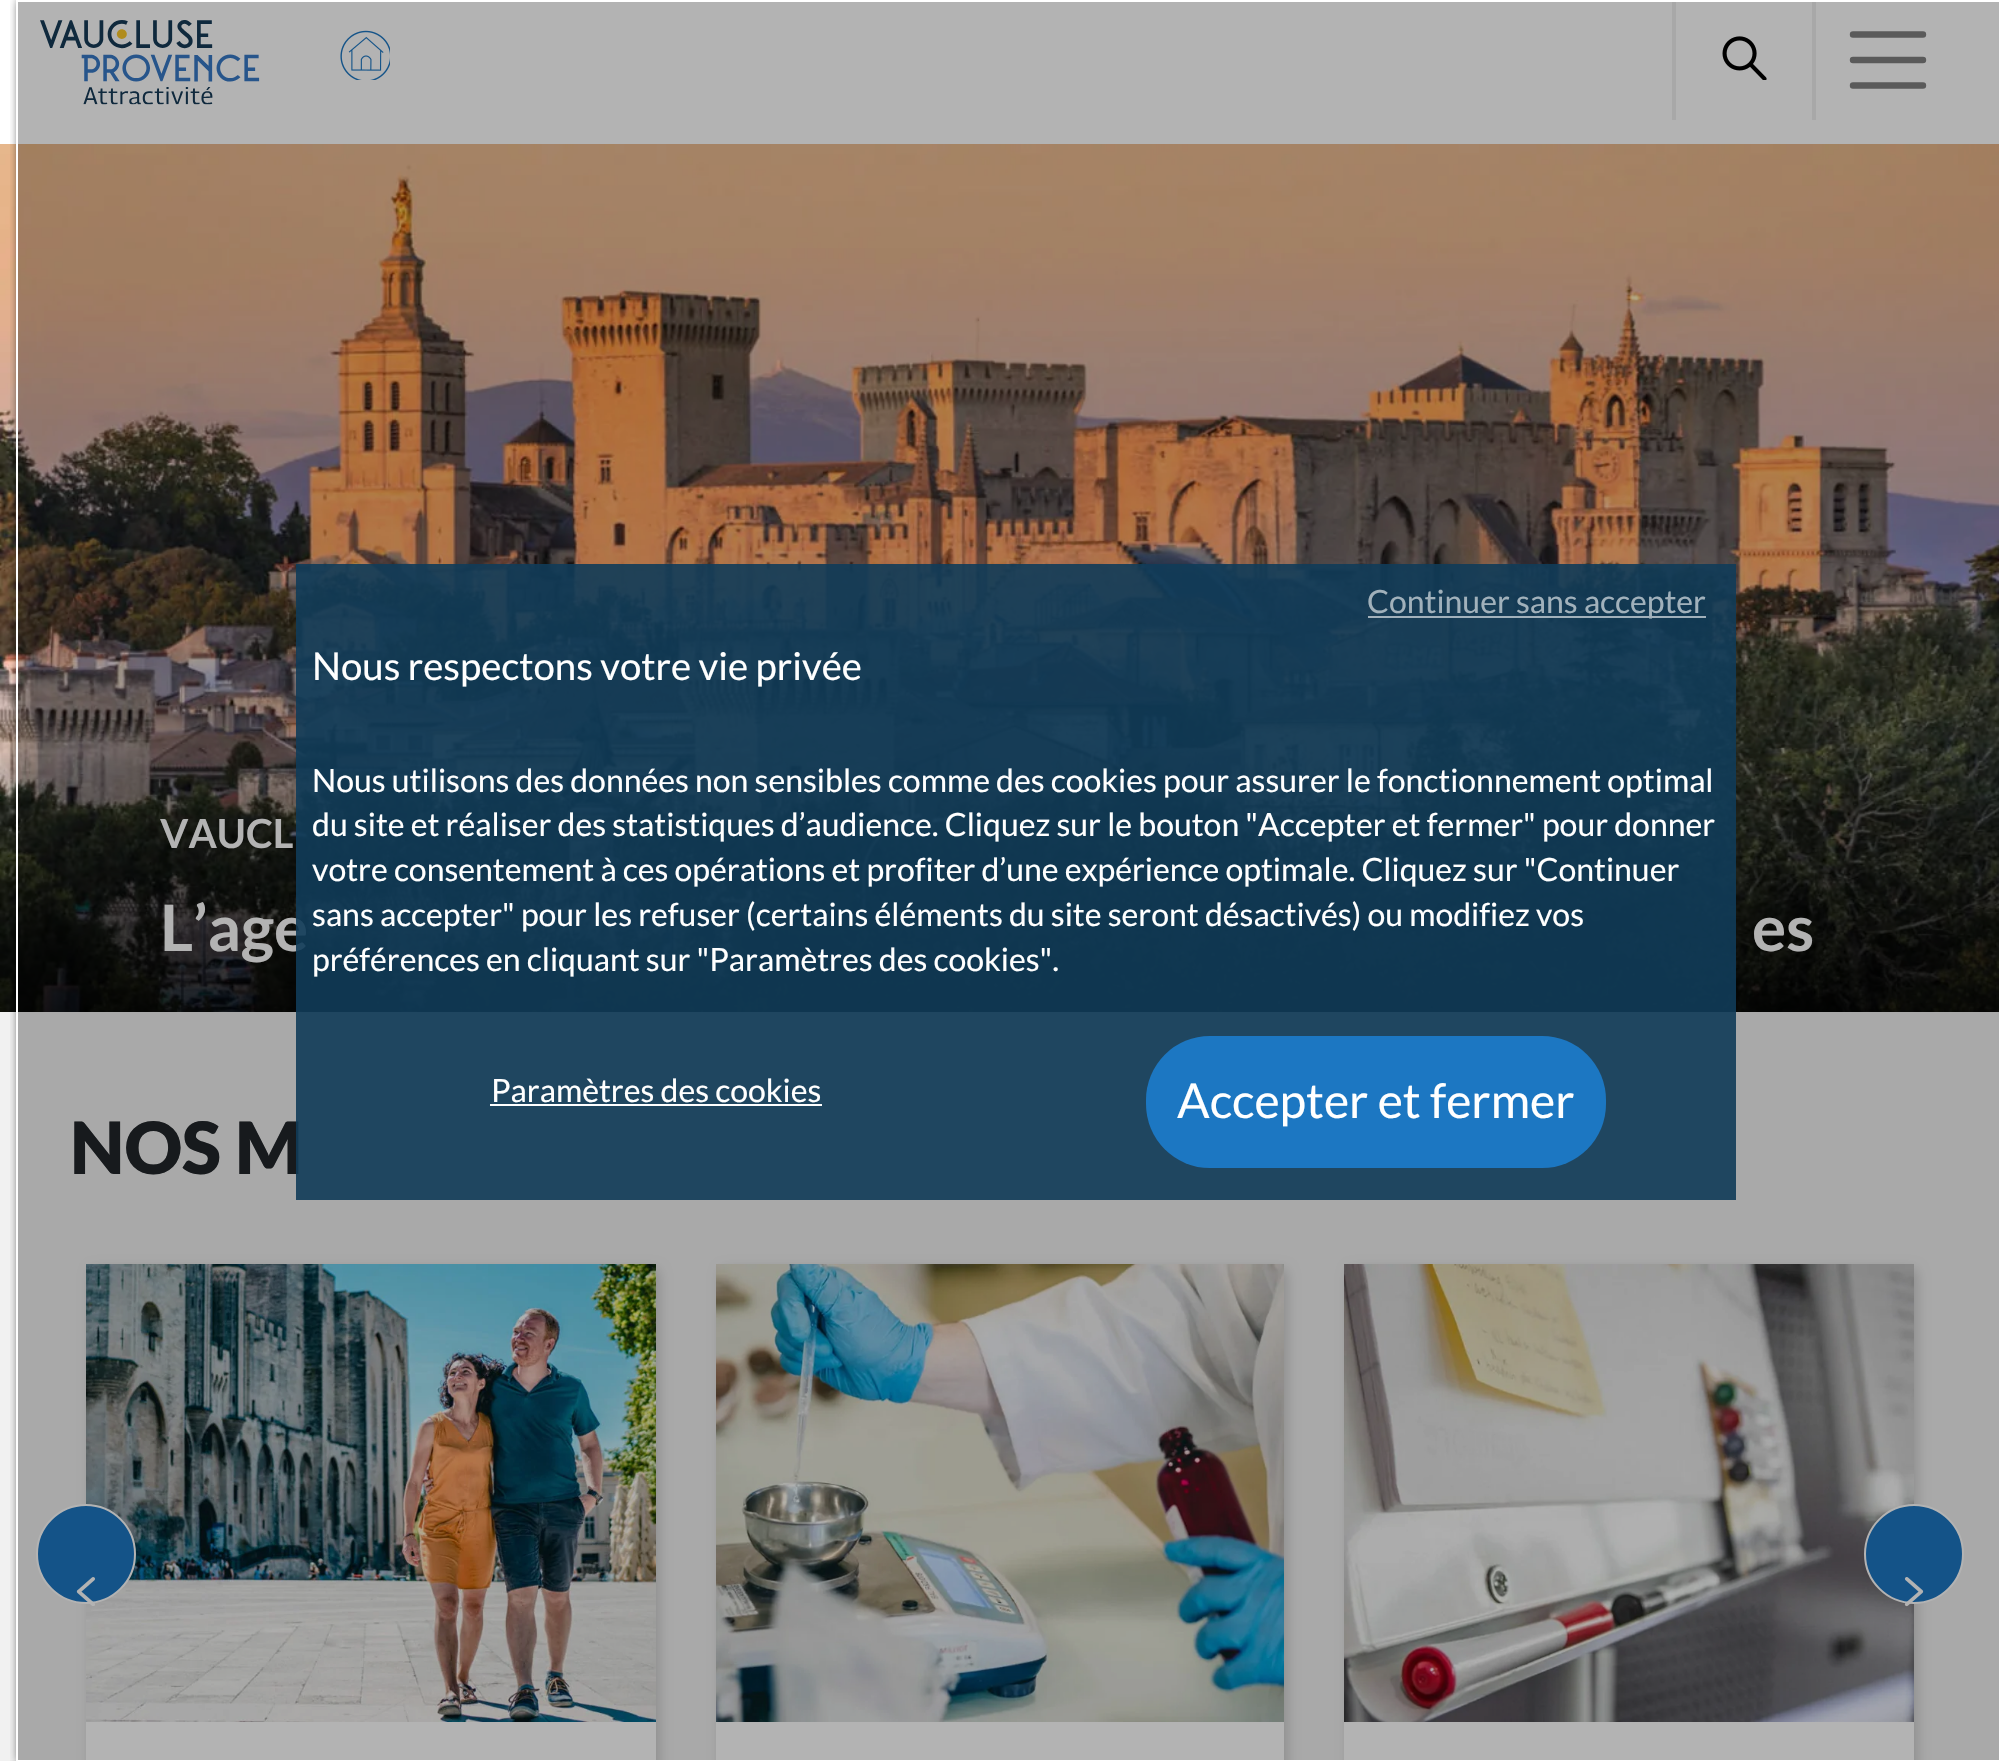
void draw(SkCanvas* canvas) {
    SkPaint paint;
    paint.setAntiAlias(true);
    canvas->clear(0xFFFFFFFF);
    paint.setColor(0xFFB3B3B3);
    canvas->drawRect(SkRect::MakeXYWH(18, 2, 1981, 142), paint);
    canvas->drawImageRect(SkImages::DeferredFromEncodedData(SkData::MakeFromFileName("img1.png")), SkRect::MakeXYWH(40, 20, 220, 85), SkSamplingOptions());
    canvas->drawImageRect(SkImages::DeferredFromEncodedData(SkData::MakeFromFileName("img2.png")), SkRect::MakeXYWH(340, 30, 50, 50), SkSamplingOptions());
    paint.setColor(0xFFA8A8A8);
    canvas->drawRect(SkRect::MakeXYWH(1812, 0, 4, 120), paint);
    canvas->drawRect(SkRect::MakeXYWH(1672, 0, 4, 120), paint);
    canvas->drawImageRect(SkImages::DeferredFromEncodedData(SkData::MakeFromFileName("img3.png")), SkRect::MakeXYWH(1722, 36, 45, 44), SkSamplingOptions());
    paint.setStyle(SkPaint::kStroke_Style);
    paint.setStrokeWidth(6.4f);
    paint.setStrokeCap(SkPaint::kRound_Cap);
    paint.setColor(0xFF5A5A5A);
    canvas->drawPath(SkPathBuilder().moveTo(1853, 34.5f).lineTo(1923, 34.5f).moveTo(1853, 60).lineTo(1923, 60).moveTo(1853, 85.5f).lineTo(1923, 85.5f).detach(), paint);
    canvas->drawImageRect(SkImages::DeferredFromEncodedData(SkData::MakeFromFileName("img4.png")), SkRect::MakeXYWH(0, 144, 1999, 868), SkSamplingOptions());
    paint.setStyle(SkPaint::kFill_Style);
    paint.setColor(0xFFF1F1F1);
    canvas->drawRect(SkRect::MakeXYWH(0, 1012, 16, 749), paint);
    paint.setColor(0xFFA9A9A9);
    canvas->drawRect(SkRect::MakeXYWH(18, 1012, 1981, 748), paint);
    paint.setColor(0x26000000);
    paint.setMaskFilter(SkMaskFilter::MakeBlur(kNormal_SkBlurStyle, 6));
    canvas->drawRoundRect(SkRect::MakeXYWH(90, 1268, 570, 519), 8, 8, paint);
    paint.setMaskFilter(nullptr);
    paint.setColor(0xFFB3B3B3);
    canvas->drawRect(SkRect::MakeXYWH(86, 1722, 570, 38), paint);
    canvas->drawImageRect(SkImages::DeferredFromEncodedData(SkData::MakeFromFileName("img5.png")), SkRect::MakeXYWH(86, 1264, 570, 458), SkSamplingOptions());
    paint.setColor(0x26000000);
    paint.setMaskFilter(SkMaskFilter::MakeBlur(kNormal_SkBlurStyle, 6));
    canvas->drawRoundRect(SkRect::MakeXYWH(720, 1268, 568, 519), 8, 8, paint);
    paint.setMaskFilter(nullptr);
    paint.setColor(0xFFB3B3B3);
    canvas->drawRect(SkRect::MakeXYWH(716, 1722, 568, 38), paint);
    canvas->drawImageRect(SkImages::DeferredFromEncodedData(SkData::MakeFromFileName("img6.png")), SkRect::MakeXYWH(716, 1264, 568, 458), SkSamplingOptions());
    paint.setColor(0x26000000);
    paint.setMaskFilter(SkMaskFilter::MakeBlur(kNormal_SkBlurStyle, 6));
    canvas->drawRoundRect(SkRect::MakeXYWH(1348, 1268, 570, 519), 8, 8, paint);
    paint.setMaskFilter(nullptr);
    paint.setColor(0xFFB3B3B3);
    canvas->drawRect(SkRect::MakeXYWH(1344, 1722, 570, 38), paint);
    canvas->drawImageRect(SkImages::DeferredFromEncodedData(SkData::MakeFromFileName("img7.png")), SkRect::MakeXYWH(1344, 1264, 570, 458), SkSamplingOptions());
    paint.setColor(0xFF145388);
    canvas->drawCircle(86, 1554, 49, paint);
    paint.setStyle(SkPaint::kStroke_Style);
    paint.setStrokeWidth(2);
    paint.setStrokeCap(SkPaint::kButt_Cap);
    paint.setColor(0xFFB3B3B3);
    canvas->drawCircle(86, 1554, 49, paint);
    canvas->drawImageRect(SkImages::DeferredFromEncodedData(SkData::MakeFromFileName("img8.png")), SkRect::MakeXYWH(76, 1577, 19, 29), SkSamplingOptions());
    paint.setStyle(SkPaint::kFill_Style);
    paint.setColor(0xFF145388);
    canvas->drawCircle(1914, 1554, 49, paint);
    paint.setStyle(SkPaint::kStroke_Style);
    paint.setColor(0xFFB3B3B3);
    canvas->drawCircle(1914, 1554, 49, paint);
    canvas->drawImageRect(SkImages::DeferredFromEncodedData(SkData::MakeFromFileName("img9.png")), SkRect::MakeXYWH(1904, 1577, 20, 30), SkSamplingOptions());
    canvas->save();
    canvas->clipRect(SkRect::MakeXYWH(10, 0, 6, 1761));
    paint.setStyle(SkPaint::kFill_Style);
    paint.setColor(0xFF000000);
    paint.setMaskFilter(SkMaskFilter::MakeBlur(kNormal_SkBlurStyle, 5));
    canvas->drawRect(SkRect::MakeXYWH(20, 0, 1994, 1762), paint);
    paint.setMaskFilter(nullptr);
    canvas->restore();
    paint.setStyle(SkPaint::kStroke_Style);
    paint.setColor(0xFFFFFFFF);
    canvas->drawRect(SkRect::MakeXYWH(17, 1, 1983, 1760), paint);
    SkFont font1(fontMgr->matchFamilyStyle("Lato", SkFontStyle::Bold()), 64);
    font1.setSubpixel(true);
    paint.setStyle(SkPaint::kFill_Style);
    paint.setColor(0xFFB3B3B3);
    canvas->drawString("L’age", 160, 951, font1, paint);
    SkFont font2(fontMgr->matchFamilyStyle("Lato", SkFontStyle(900, SkFontStyle::kNormal_Width, SkFontStyle::kUpright_Slant)), 72);
    font2.setSubpixel(true);
    paint.setColor(0xFF171A1D);
    canvas->drawString("NOS M", 70, 1174, font2, paint);
    paint.setColor(0xE60F3B58);
    canvas->drawRect(SkRect::MakeXYWH(296, 564, 1440, 636), paint);
    paint.setColor(0x99FFFFFF);
    canvas->drawRect(SkRect::MakeXYWH(1368, 616, 338, 2), paint);
    SkFont font3(fontMgr->matchFamilyStyle("Lato", SkFontStyle::Normal()), 32);
    font3.setSubpixel(true);
    paint.setColor(0xFFA1B1BB);
    canvas->drawString("Continuer sans accepter", 1367, 613, font3, paint);
    SkFont font4(fontMgr->matchFamilyStyle("Lato", SkFontStyle::Normal()), 38.4f);
    font4.setSubpixel(true);
    paint.setColor(0xFFFFFFFF);
    canvas->drawString("Nous respectons votre vie privée", 312, 680, font4, paint);
    canvas->drawString("Nous utilisons des données non sensibles comme des cookies pour assurer le fonctionnement optimal", 312, 792, font3, paint);
    canvas->drawString("du site et réaliser des statistiques d’audience. Cliquez sur le bouton \"Accepter et fermer\" pour donner", 312, 836, font3, paint);
    canvas->drawString("votre consentement à ces opérations et profiter d’une expérience optimale. Cliquez sur \"Continuer", 312, 881, font3, paint);
    canvas->drawString("sans accepter\" pour les refuser (certains éléments du site seront désactivés) ou modifiez vos", 312, 926, font3, paint);
    canvas->drawString("préférences en cliquant sur \"Paramètres des cookies\".", 312, 971, font3, paint);
    canvas->drawString("Paramètres des cookies", 491, 1102, font3, paint);
    canvas->drawRect(SkRect::MakeXYWH(490, 1104, 332, 2), paint);
    paint.setColor(0xFF1C77C2);
    canvas->drawRoundRect(SkRect::MakeXYWH(1146, 1036, 460, 132), 64, 64, paint);
    SkFont font5(fontMgr->matchFamilyStyle("Lato", SkFontStyle::Normal()), 48);
    font5.setSubpixel(true);
    paint.setColor(0xFFFFFFFF);
    canvas->drawString("Accepter et fermer", 1177, 1118, font5, paint);
    SkFont font6(fontMgr->matchFamilyStyle("Lato", SkFontStyle::Bold()), 40);
    font6.setSubpixel(true);
    paint.setColor(0xFFB3B3B3);
    canvas->drawString("VAUCL", 160, 848, font6, paint);
    canvas->drawString("es", 1752, 951, font1, paint);
}
